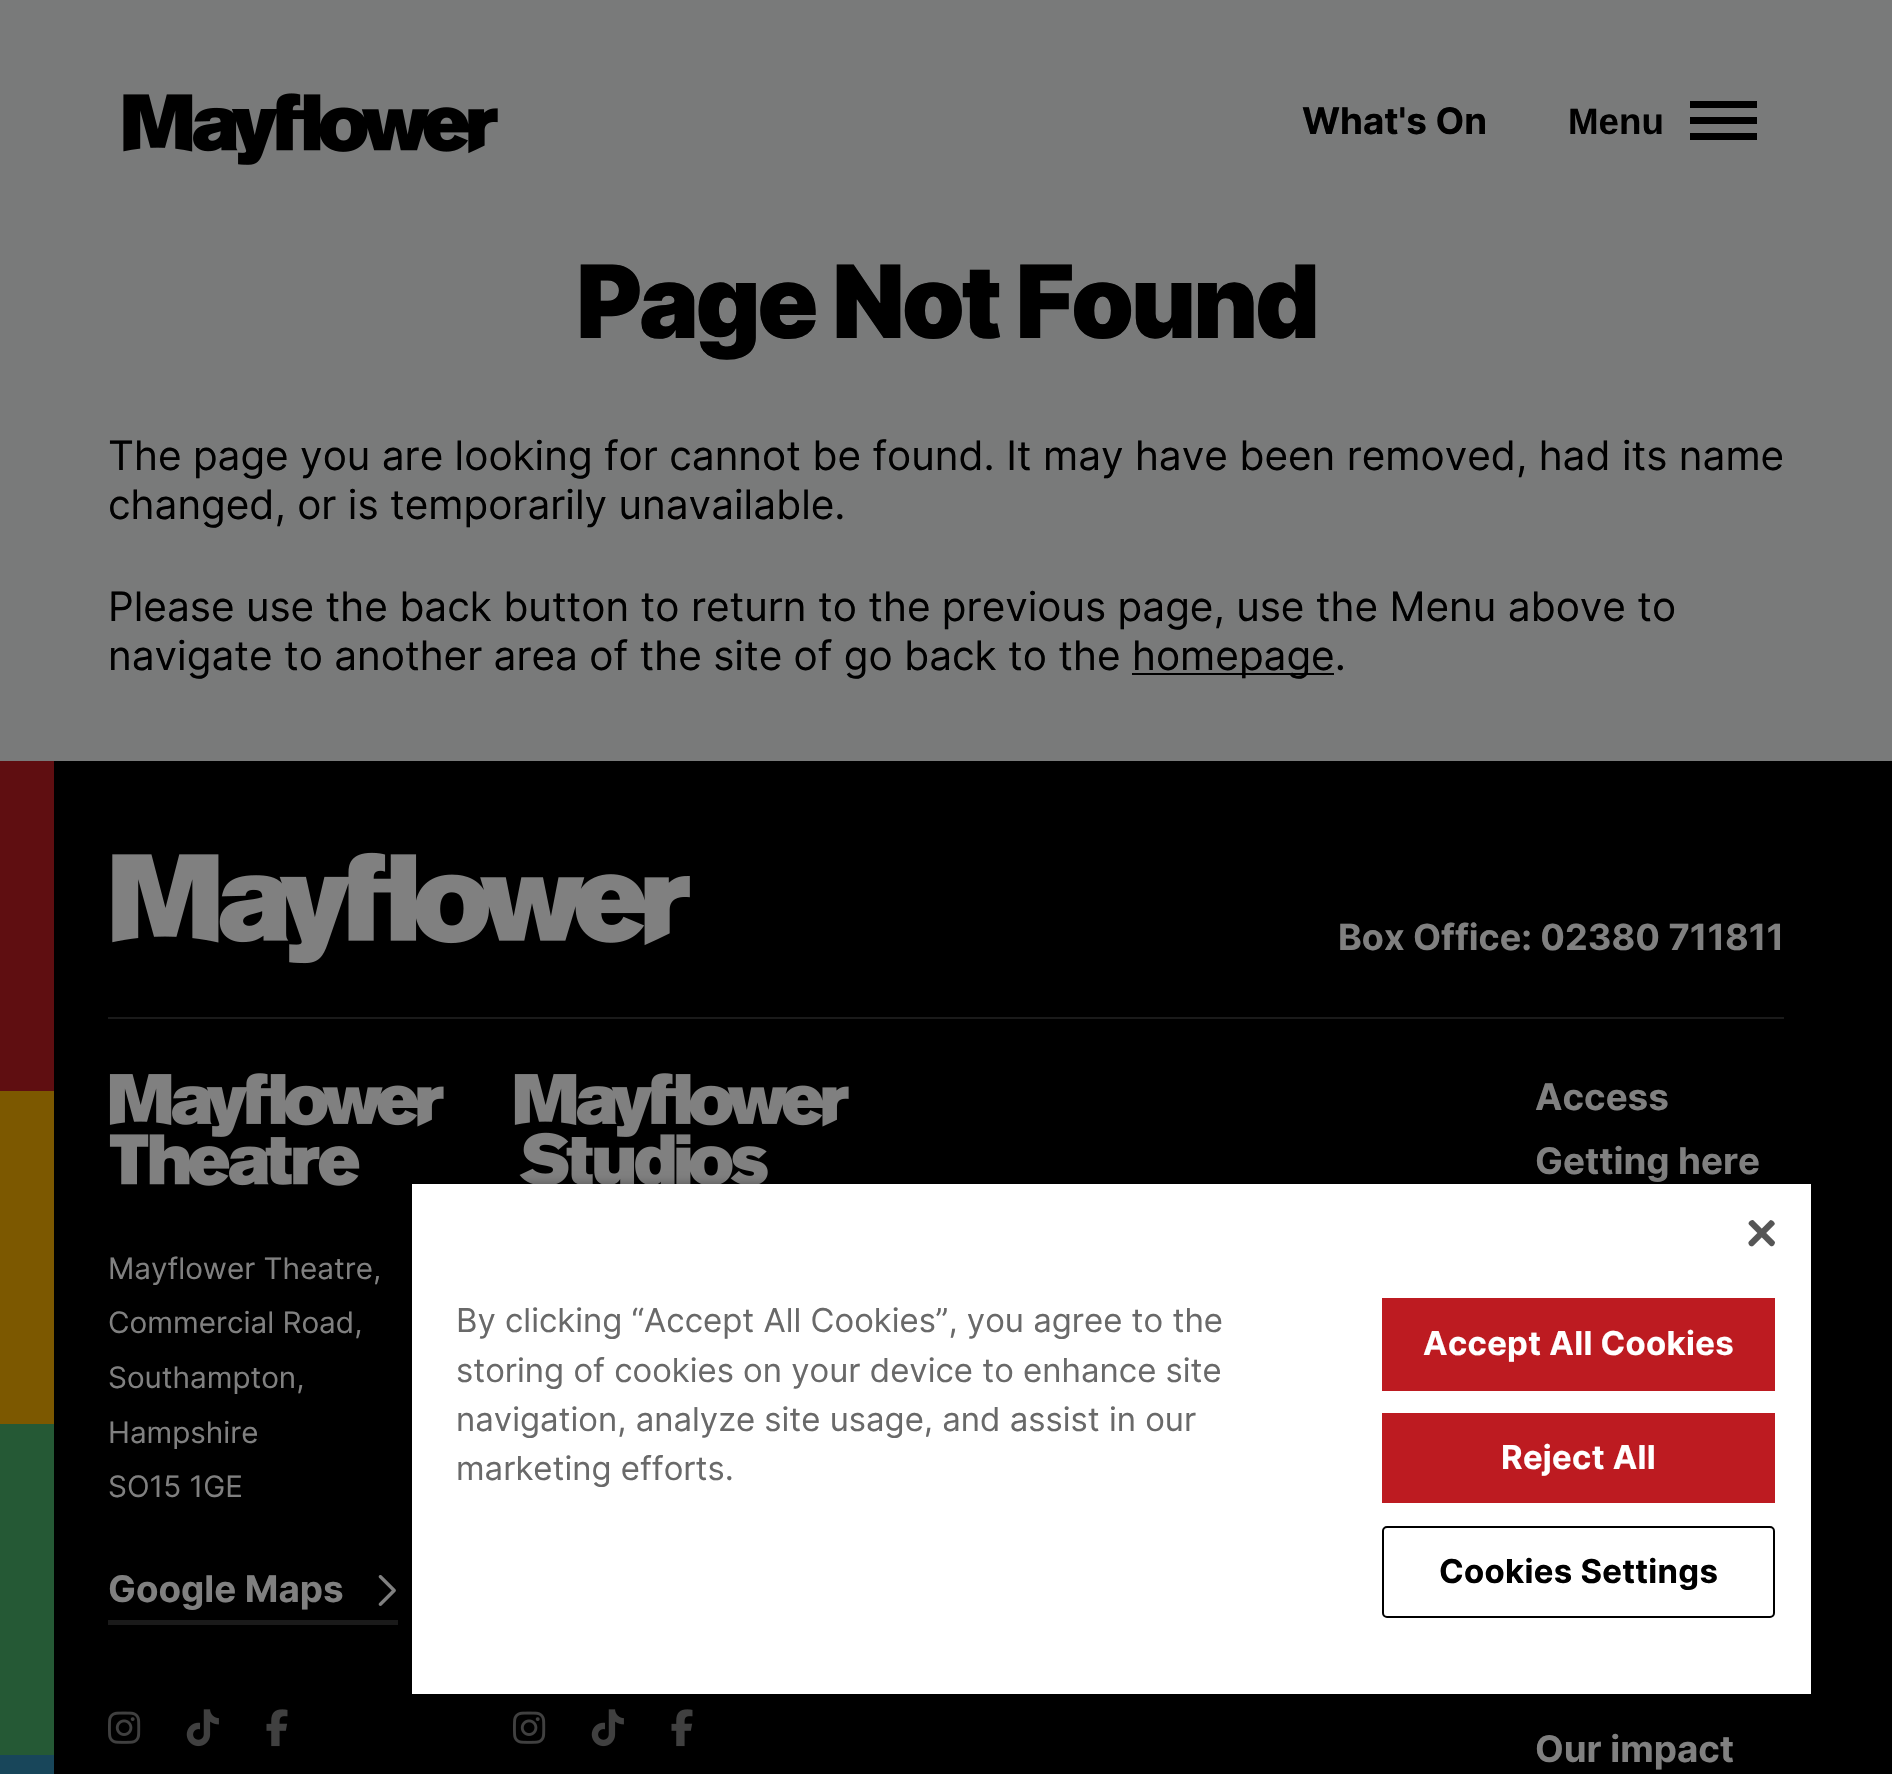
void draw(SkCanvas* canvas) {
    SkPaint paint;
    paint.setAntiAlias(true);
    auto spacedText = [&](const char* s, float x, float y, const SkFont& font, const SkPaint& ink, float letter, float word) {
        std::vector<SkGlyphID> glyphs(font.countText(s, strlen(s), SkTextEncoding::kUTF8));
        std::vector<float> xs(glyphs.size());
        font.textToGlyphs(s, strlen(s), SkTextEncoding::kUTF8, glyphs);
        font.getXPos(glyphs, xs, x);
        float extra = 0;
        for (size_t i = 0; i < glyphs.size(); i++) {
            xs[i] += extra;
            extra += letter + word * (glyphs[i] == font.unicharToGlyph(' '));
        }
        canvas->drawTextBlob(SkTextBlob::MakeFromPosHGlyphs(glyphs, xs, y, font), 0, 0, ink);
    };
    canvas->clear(0xFF797A7A);
    canvas->drawImageRect(SkImages::DeferredFromEncodedData(SkData::MakeFromFileName("img1.png")), SkRect::MakeXYWH(123, 93, 375, 72), SkSamplingOptions());
    SkFont font1(fontMgr->matchFamilyStyle("Inter", SkFontStyle::Bold()), 36.75f);
    font1.setSubpixel(true);
    paint.setColor(0xFF000000);
    canvas->drawString("What's On", 1302, 134, font1, paint);
    SkFont font2(fontMgr->matchFamilyStyle("Liberation Sans", SkFontStyle::Bold()), 36.75f);
    font2.setSubpixel(true);
    canvas->drawString("Menu", 1568, 134, font2, paint);
    canvas->drawRect(SkRect::MakeXYWH(1690, 117, 67, 7), paint);
    canvas->drawRect(SkRect::MakeXYWH(1690, 101, 67, 7), paint);
    canvas->drawRect(SkRect::MakeXYWH(1690, 133, 67, 7), paint);
    SkFont font3(fontMgr->matchFamilyStyle("Inter", SkFontStyle(900, SkFontStyle::kNormal_Width, SkFontStyle::kUpright_Slant)), 101);
    font3.setSubpixel(true);
    spacedText("Page Not Found", 576, 338, font3, paint, -3.4f, 0);
    SkFont font4(fontMgr->matchFamilyStyle("Inter", SkFontStyle::Normal()), 40.5f);
    font4.setSubpixel(true);
    canvas->drawString("The page you are looking for cannot be found. It may have been removed, had its name", 108, 470, font4, paint);
    canvas->drawString("changed, or is temporarily unavailable.", 108, 519, font4, paint);
    canvas->drawString("Please use the back button to return to the previous page, use the Menu above to", 108, 621, font4, paint);
    canvas->drawString("navigate to another area of the site of go back to the", 108, 670, font4, paint);
    canvas->drawRect(SkRect::MakeXYWH(1132, 673, 202, 2), paint);
    canvas->drawString("homepage.", 1132, 670, font4, paint);
    canvas->drawRect(SkRect::MakeXYWH(54, 761, 1838, 1013), paint);
    paint.setColor(0xFF5F0E11);
    canvas->drawRect(SkRect::MakeXYWH(0, 761, 54, 330), paint);
    paint.setColor(0xFF7C5800);
    canvas->drawRect(SkRect::MakeXYWH(0, 1091, 54, 333), paint);
    paint.setColor(0xFF255935);
    canvas->drawRect(SkRect::MakeXYWH(0, 1424, 54, 331), paint);
    paint.setColor(0xFF18465A);
    canvas->drawRect(SkRect::MakeXYWH(0, 1755, 54, 19), paint);
    paint.setColor(0xFF1A1A1A);
    canvas->drawRect(SkRect::MakeXYWH(108, 1017, 1676, 2), paint);
    canvas->drawImageRect(SkImages::DeferredFromEncodedData(SkData::MakeFromFileName("img2.png")), SkRect::MakeXYWH(112, 852, 578, 112), SkSamplingOptions());
    SkFont font5(fontMgr->matchFamilyStyle("Inter", SkFontStyle::Bold()), 36);
    font5.setSubpixel(true);
    paint.setColor(0xFF808080);
    canvas->drawString("Box Office: 02380 711811", 1338, 950, font5, paint);
    canvas->drawImageRect(SkImages::DeferredFromEncodedData(SkData::MakeFromFileName("img3.png")), SkRect::MakeXYWH(109, 1073, 335, 113), SkSamplingOptions());
    SkFont font6(fontMgr->matchFamilyStyle("Inter", SkFontStyle::Normal()), 29.6f);
    font6.setSubpixel(true);
    canvas->drawString("Mayflower Theatre,", 108, 1279, font6, paint);
    canvas->drawString("Commercial Road,", 108, 1333, font6, paint);
    canvas->drawString("Southampton,", 108, 1388, font6, paint);
    canvas->drawString("Hampshire", 108, 1443, font6, paint);
    canvas->drawString("SO15 1GE", 108, 1497, font6, paint);
    canvas->drawString("Google Maps", 108, 1602, font1, paint);
    canvas->drawImageRect(SkImages::DeferredFromEncodedData(SkData::MakeFromFileName("img4.png")), SkRect::MakeXYWH(378, 1575, 18, 31), SkSamplingOptions());
    paint.setColor(0xFF1A1A1A);
    canvas->drawRect(SkRect::MakeXYWH(108, 1620, 290, 5), paint);
    canvas->drawImageRect(SkImages::DeferredFromEncodedData(SkData::MakeFromFileName("img5.png")), SkRect::MakeXYWH(108, 1711, 33, 33), SkSamplingOptions());
    canvas->drawImageRect(SkImages::DeferredFromEncodedData(SkData::MakeFromFileName("img6.png")), SkRect::MakeXYWH(186, 1709, 33, 38), SkSamplingOptions());
    canvas->drawImageRect(SkImages::DeferredFromEncodedData(SkData::MakeFromFileName("img7.png")), SkRect::MakeXYWH(266, 1709, 22, 38), SkSamplingOptions());
    canvas->drawImageRect(SkImages::DeferredFromEncodedData(SkData::MakeFromFileName("img8.png")), SkRect::MakeXYWH(514, 1073, 335, 111), SkSamplingOptions());
    canvas->drawImageRect(SkImages::DeferredFromEncodedData(SkData::MakeFromFileName("img5.png")), SkRect::MakeXYWH(513, 1711, 33, 33), SkSamplingOptions());
    canvas->drawImageRect(SkImages::DeferredFromEncodedData(SkData::MakeFromFileName("img6.png")), SkRect::MakeXYWH(591, 1709, 33, 38), SkSamplingOptions());
    canvas->drawImageRect(SkImages::DeferredFromEncodedData(SkData::MakeFromFileName("img7.png")), SkRect::MakeXYWH(671, 1709, 22, 38), SkSamplingOptions());
    paint.setColor(0xFF808080);
    canvas->drawString("Access", 1535, 1110, font1, paint);
    canvas->drawString("Getting here", 1535, 1174, font1, paint);
    canvas->drawString("Our impact", 1535, 1762, font1, paint);
    paint.setColor(0x59000000);
    paint.setMaskFilter(SkMaskFilter::MakeBlur(kNormal_SkBlurStyle, 4.5f));
    canvas->drawRect(SkRect::MakeXYWH(412, 1184, 1399, 510), paint);
    paint.setMaskFilter(nullptr);
    paint.setColor(0xFFFFFFFF);
    canvas->drawRect(SkRect::MakeXYWH(412, 1184, 1399, 510), paint);
    canvas->drawImageRect(SkImages::DeferredFromEncodedData(SkData::MakeFromFileName("img9.png")), SkRect::MakeXYWH(1748, 1220, 27, 27), SkSamplingOptions());
    SkFont font7(fontMgr->matchFamilyStyle("Inter", SkFontStyle::Normal()), 32.9f);
    font7.setSubpixel(true);
    paint.setColor(0xFF696969);
    canvas->drawString("By clicking “Accept All Cookies”, you agree to the", 456, 1332, font7, paint);
    canvas->drawString("storing of cookies on your device to enhance site", 456, 1382, font7, paint);
    canvas->drawString("navigation, analyze site usage, and assist in our", 456, 1431, font7, paint);
    canvas->drawString("marketing efforts.", 456, 1480, font7, paint);
    paint.setColor(0xFFBD1B21);
    canvas->drawRect(SkRect::MakeXYWH(1382, 1298, 393, 93), paint);
    SkFont font8(fontMgr->matchFamilyStyle("Inter", SkFontStyle::Bold()), 32.9f);
    font8.setSubpixel(true);
    paint.setColor(0xFFFFFFFF);
    spacedText("Accept All Cookies", 1423, 1355, font8, paint, 0.3f, 0);
    paint.setColor(0xFFBD1B21);
    canvas->drawRect(SkRect::MakeXYWH(1382, 1413, 393, 90), paint);
    paint.setColor(0xFFFFFFFF);
    spacedText("Reject All", 1501, 1469, font8, paint, 0.3f, 0);
    paint.setStyle(SkPaint::kStroke_Style);
    paint.setStrokeWidth(2);
    paint.setColor(0xFF000000);
    canvas->drawRoundRect(SkRect::MakeXYWH(1383, 1527, 391, 90), 4, 4, paint);
    paint.setStyle(SkPaint::kFill_Style);
    spacedText("Cookies Settings", 1439, 1583, font8, paint, 0.3f, 0);
}
